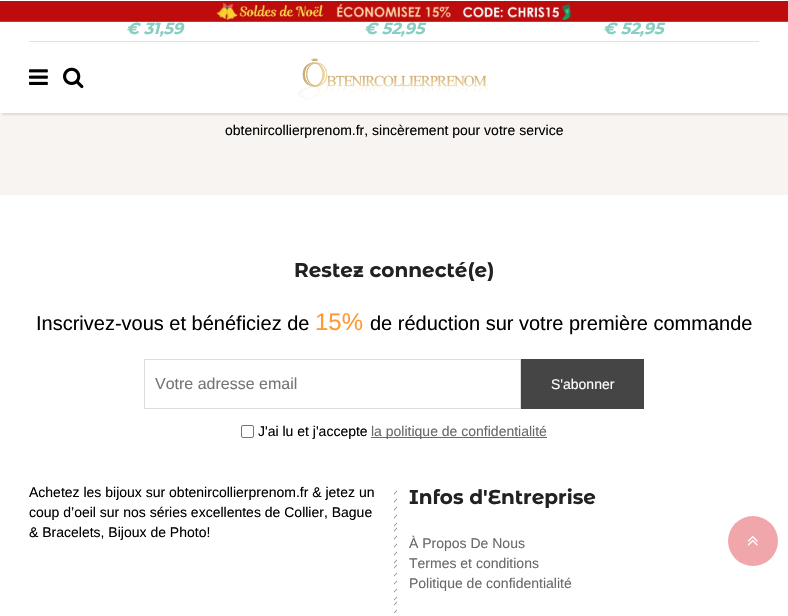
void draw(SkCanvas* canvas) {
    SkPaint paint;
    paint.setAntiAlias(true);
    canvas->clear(0xFFFFFFFF);
    canvas->drawImageRect(SkImages::DeferredFromEncodedData(SkData::MakeFromFileName("img1.png")), SkRect::MakeXYWH(0, 1, 788, 21), SkSamplingOptions());
    SkFont font1(fontMgr->matchFamilyStyle("Montserrat Alternates", SkFontStyle::BoldItalic()), 16);
    font1.setSubpixel(true);
    paint.setColor(0xFF87CFC2);
    canvas->drawString("€ 31,59", 126, 34, font1, paint);
    canvas->drawString("€ 52,95", 364, 34, font1, paint);
    canvas->drawString("€ 52,95", 603, 34, font1, paint);
    paint.setColor(0xFFF8F4F1);
    canvas->drawRect(SkRect::MakeXYWH(0, 113, 788, 82), paint);
    canvas->save();
    canvas->clipRect(SkRect::MakeXYWH(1, 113, 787, 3));
    paint.setColor(0x1A000000);
    paint.setMaskFilter(SkMaskFilter::MakeBlur(kNormal_SkBlurStyle, 1));
    canvas->drawRect(SkRect::MakeXYWH(2, 43, 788, 72), paint);
    paint.setMaskFilter(nullptr);
    canvas->restore();
    paint.setColor(0xFFE1E1E1);
    canvas->drawRect(SkRect::MakeXYWH(29, 41, 730, 1), paint);
    canvas->drawImageRect(SkImages::DeferredFromEncodedData(SkData::MakeFromFileName("img2.png")), SkRect::MakeXYWH(29, 69, 19, 16), SkSamplingOptions());
    canvas->drawImageRect(SkImages::DeferredFromEncodedData(SkData::MakeFromFileName("img3.png")), SkRect::MakeXYWH(63, 67, 21, 22), SkSamplingOptions());
    canvas->drawImageRect(SkImages::DeferredFromEncodedData(SkData::MakeFromFileName("img4.png")), SkRect::MakeXYWH(298, 58, 191, 42), SkSamplingOptions());
    SkFont font2(fontMgr->matchFamilyStyle("Liberation Sans", SkFontStyle::Normal()), 14);
    font2.setSubpixel(true);
    paint.setColor(0xFF010101);
    canvas->drawString("obtenircollierprenom.fr, sincèrement pour votre service", 225, 135, font2, paint);
    SkFont font3(fontMgr->matchFamilyStyle("Montserrat Alternates", SkFontStyle::Bold()), 20);
    font3.setSubpixel(true);
    paint.setColor(0xFF222222);
    canvas->drawString("Restez connecté(e)", 294, 277, font3, paint);
    SkFont font4(fontMgr->matchFamilyStyle("Liberation Sans", SkFontStyle::Normal()), 20);
    font4.setSubpixel(true);
    paint.setColor(0xFF010101);
    canvas->drawString("Inscrivez-vous et bénéficiez de", 36, 330, font4, paint);
    SkFont font5(fontMgr->matchFamilyStyle("Liberation Sans", SkFontStyle::Normal()), 24);
    font5.setSubpixel(true);
    paint.setColor(0xFFFF9933);
    canvas->drawString("15%", 315, 330, font5, paint);
    paint.setColor(0xFF010101);
    canvas->drawString("de réduction sur votre première commande", 370, 330, font4, paint);
    paint.setStyle(SkPaint::kStroke_Style);
    paint.setStrokeWidth(1);
    paint.setColor(0xFFDEDEDE);
    canvas->drawRect(SkRect::MakeXYWH(144.5f, 359.5f, 376, 49), paint);
    SkFont font6(fontMgr->matchFamilyStyle("Liberation Sans", SkFontStyle::Normal()), 16);
    font6.setSubpixel(true);
    paint.setStyle(SkPaint::kFill_Style);
    paint.setColor(0xFF757575);
    canvas->drawString("Votre adresse email", 155, 389, font6, paint);
    paint.setColor(0xFF454545);
    canvas->drawRect(SkRect::MakeXYWH(521, 359, 123, 50), paint);
    paint.setColor(0xFFFFFFFF);
    canvas->drawString("S'abonner", 551, 389, font2, paint);
    paint.setStyle(SkPaint::kStroke_Style);
    paint.setColor(0xFF767676);
    canvas->drawRoundRect(SkRect::MakeXYWH(241.5f, 425.5f, 12, 12), 1.5f, 1.5f, paint);
    paint.setStyle(SkPaint::kFill_Style);
    paint.setColor(0xFF010101);
    canvas->drawString("J'ai lu et j'accepte", 258, 436, font2, paint);
    paint.setColor(0xFF696969);
    canvas->drawRect(SkRect::MakeXYWH(371, 437, 176, 1), paint);
    canvas->drawString("la politique de confidentialité", 371, 436, font2, paint);
    paint.setColor(0xFF010101);
    canvas->drawString("Achetez les bijoux sur obtenircollierprenom.fr & jetez un", 29, 497, font2, paint);
    canvas->drawString("coup d’oeil sur nos séries excellentes de Collier, Bague", 29, 517, font2, paint);
    canvas->drawString("& Bracelets, Bijoux de Photo!", 29, 537, font2, paint);
    canvas->drawImageRect(SkImages::DeferredFromEncodedData(SkData::MakeFromFileName("img5.png")), SkRect::MakeXYWH(394, 490, 3, 123), SkSamplingOptions());
    paint.setColor(0xFF222222);
    canvas->drawString("Infos d'Entreprise", 409, 504, font3, paint);
    paint.setColor(0xFF696969);
    canvas->drawString("À Propos De Nous", 409, 548, font2, paint);
    canvas->drawString("Termes et conditions", 409, 568, font2, paint);
    canvas->drawString("Politique de confidentialité", 409, 588, font2, paint);
    paint.setColor(0xFFF1A6AB);
    canvas->drawCircle(753, 541, 25, paint);
    canvas->drawImageRect(SkImages::DeferredFromEncodedData(SkData::MakeFromFileName("img6.png")), SkRect::MakeXYWH(747, 536, 11, 10), SkSamplingOptions());
}
